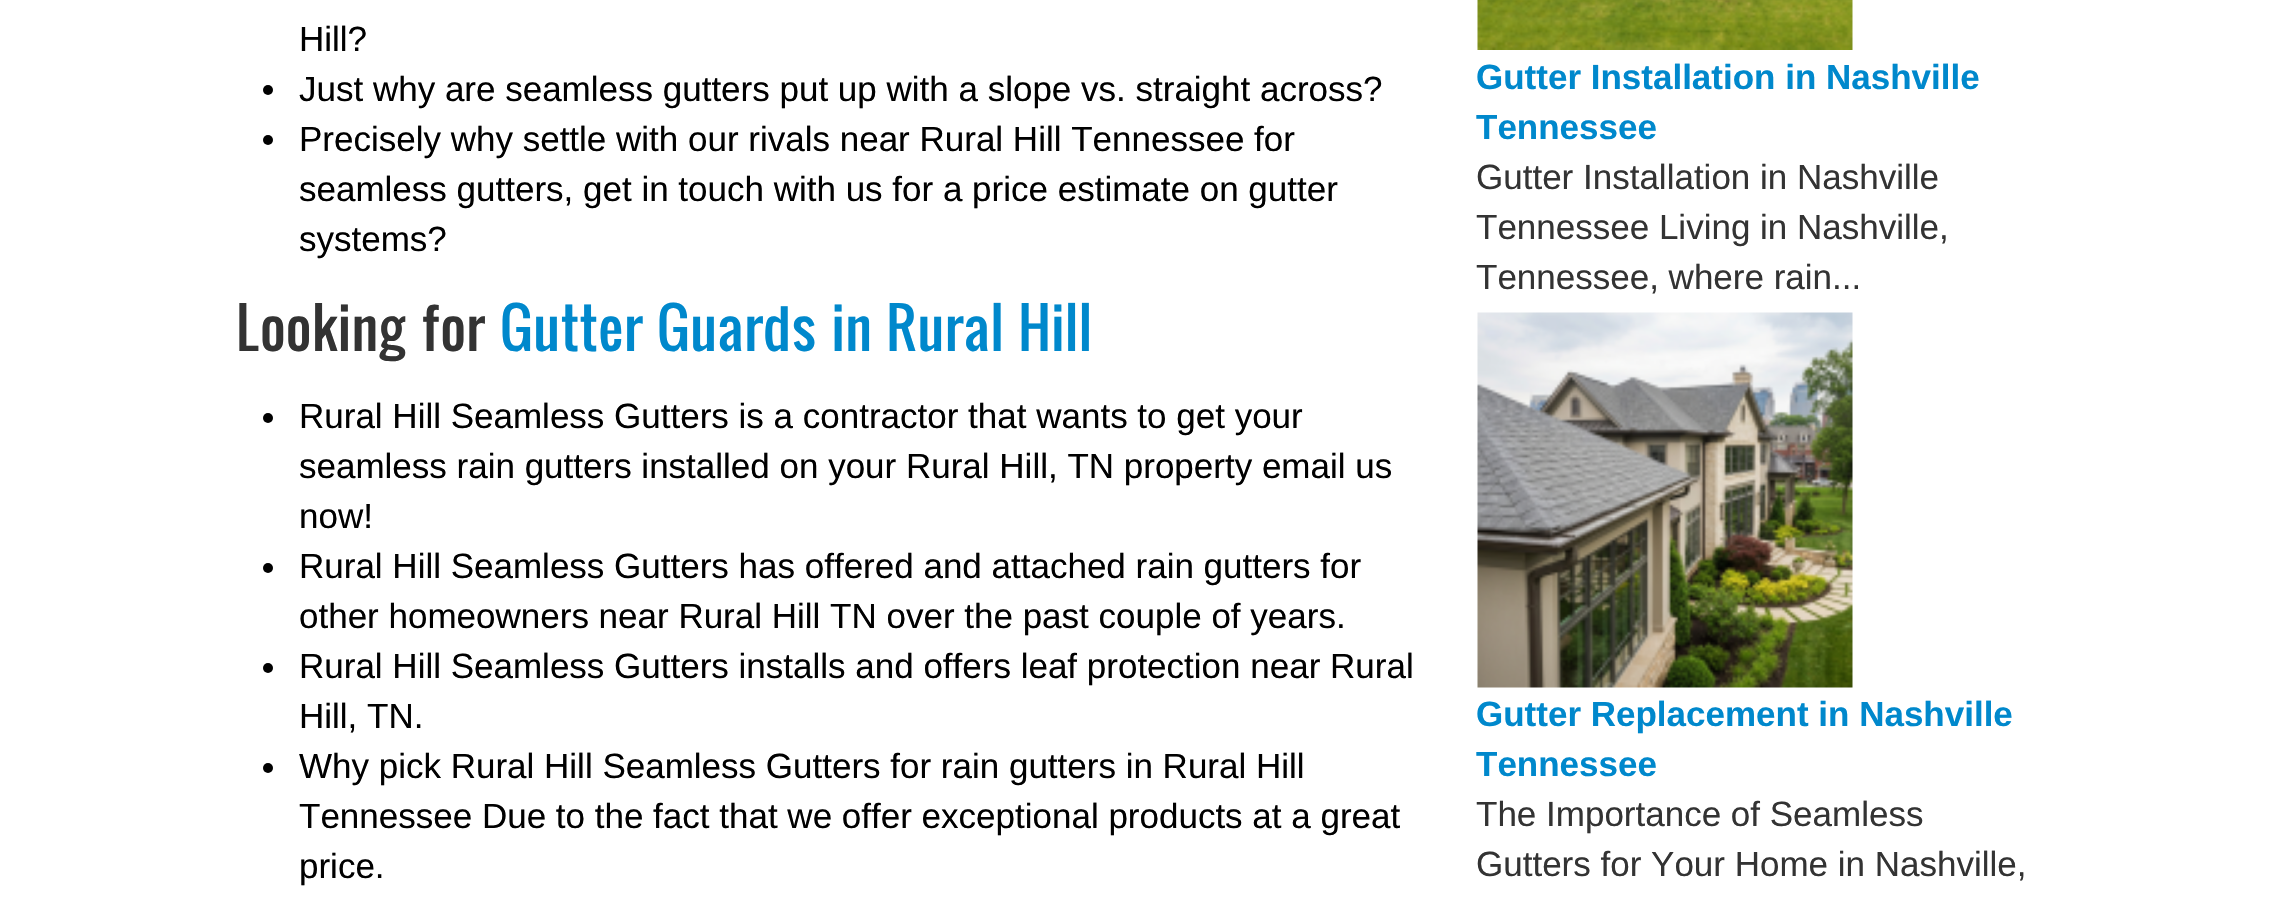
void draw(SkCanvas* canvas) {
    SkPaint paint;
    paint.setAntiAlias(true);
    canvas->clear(0xFFFFFFFF);
    SkFont font1(fontMgr->matchFamilyStyle("Liberation Sans", SkFontStyle::Normal()), 35);
    font1.setSubpixel(true);
    paint.setColor(0xFF000000);
    canvas->drawString("Hill?", 299, 51, font1, paint);
    canvas->drawCircle(268, 90, 5, paint);
    canvas->drawString("Just why are seamless gutters put up with a slope vs. straight across?", 299, 101, font1, paint);
    canvas->drawCircle(268, 140, 5, paint);
    canvas->drawString("Precisely why settle with our rivals near Rural Hill Tennessee for", 299, 151, font1, paint);
    canvas->drawString("seamless gutters, get in touch with us for a price estimate on gutter", 299, 201, font1, paint);
    canvas->drawString("systems?", 299, 251, font1, paint);
    SkFont font2(fontMgr->matchFamilyStyle("Oswald", SkFontStyle::Normal()), 55);
    font2.setSubpixel(true);
    paint.setColor(0xFF333333);
    canvas->drawString("Looking for", 236, 351, font2, paint);
    paint.setColor(0xFF0088CC);
    canvas->drawString("Gutter Guards in Rural Hill", 500, 351, font2, paint);
    paint.setColor(0xFF000000);
    canvas->drawCircle(268, 418, 5, paint);
    canvas->drawString("Rural Hill Seamless Gutters is a contractor that wants to get your", 299, 428, font1, paint);
    canvas->drawString("seamless rain gutters installed on your Rural Hill, TN property email us", 299, 478, font1, paint);
    canvas->drawString("now!", 299, 528, font1, paint);
    canvas->drawCircle(268, 568, 5, paint);
    canvas->drawString("Rural Hill Seamless Gutters has offered and attached rain gutters for", 299, 578, font1, paint);
    canvas->drawString("other homeowners near Rural Hill TN over the past couple of years.", 299, 628, font1, paint);
    canvas->drawCircle(268, 668, 5, paint);
    canvas->drawString("Rural Hill Seamless Gutters installs and offers leaf protection near Rural", 299, 678, font1, paint);
    canvas->drawString("Hill, TN.", 299, 728, font1, paint);
    canvas->drawCircle(268, 768, 5, paint);
    canvas->drawString("Why pick Rural Hill Seamless Gutters for rain gutters in Rural Hill", 299, 778, font1, paint);
    canvas->drawString("Tennessee Due to the fact that we offer exceptional products at a great", 299, 828, font1, paint);
    canvas->drawString("price.", 299, 878, font1, paint);
    canvas->drawImageRect(SkImages::DeferredFromEncodedData(SkData::MakeFromFileName("img1.png")), SkRect::MakeXYWH(1477, 0, 376, 50), SkSamplingOptions());
    SkFont font3(fontMgr->matchFamilyStyle("Liberation Sans", SkFontStyle::Bold()), 35);
    font3.setSubpixel(true);
    paint.setColor(0xFF0088CC);
    canvas->drawString("Gutter Installation in Nashville", 1476, 89, font3, paint);
    canvas->drawString("Tennessee", 1476, 139, font3, paint);
    paint.setColor(0xFF333333);
    canvas->drawString("Gutter Installation in Nashville", 1476, 189, font1, paint);
    canvas->drawString("Tennessee Living in Nashville,", 1476, 239, font1, paint);
    canvas->drawString("Tennessee, where rain...", 1476, 289, font1, paint);
    canvas->drawImageRect(SkImages::DeferredFromEncodedData(SkData::MakeFromFileName("img2.png")), SkRect::MakeXYWH(1477, 312, 376, 376), SkSamplingOptions());
    paint.setColor(0xFF0088CC);
    canvas->drawString("Gutter Replacement in Nashville", 1476, 726, font3, paint);
    canvas->drawString("Tennessee", 1476, 776, font3, paint);
    paint.setColor(0xFF333333);
    canvas->drawString("The Importance of Seamless", 1476, 826, font1, paint);
    canvas->drawString("Gutters for Your Home in Nashville,", 1476, 876, font1, paint);
}
